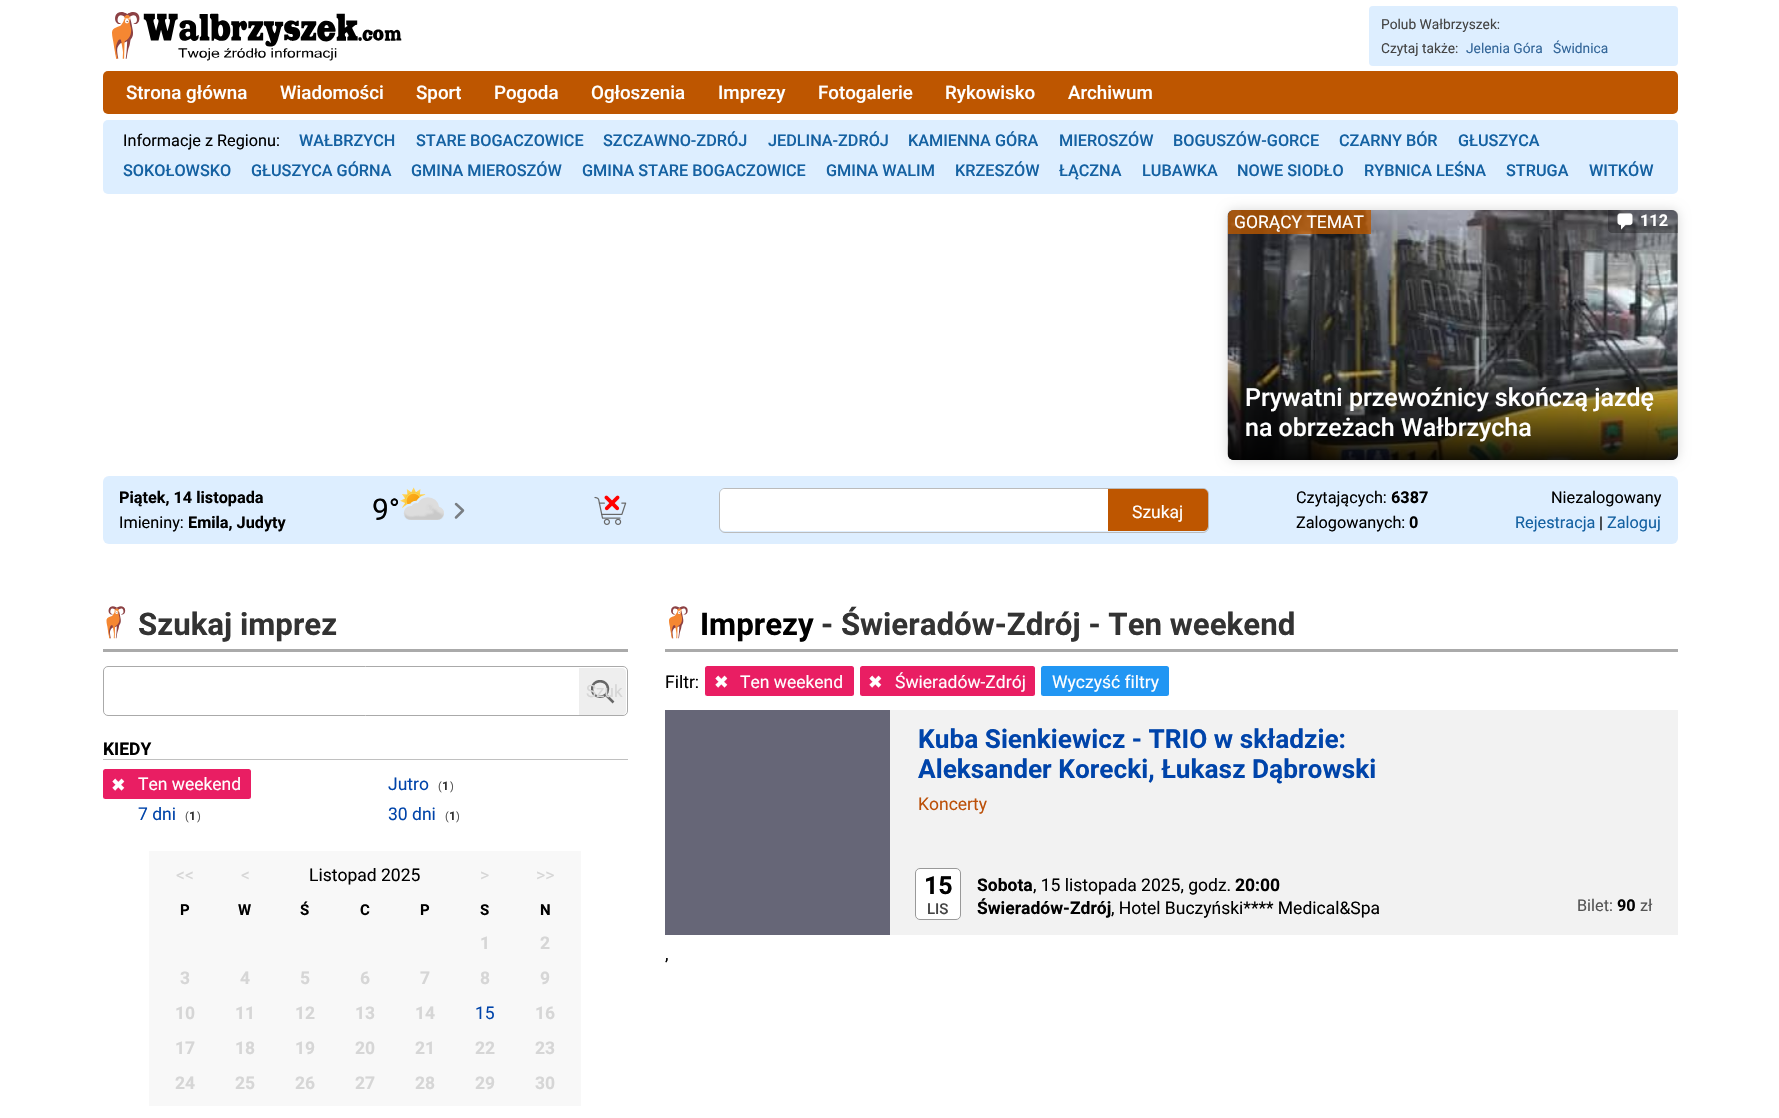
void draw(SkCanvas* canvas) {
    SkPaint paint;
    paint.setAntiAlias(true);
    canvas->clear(0xFFFFFFFF);
    canvas->drawImageRect(SkImages::DeferredFromEncodedData(SkData::MakeFromFileName("img1.png")), SkRect::MakeXYWH(112, 12, 290, 49), SkSamplingOptions());
    paint.setColor(0xFFDDEEFF);
    canvas->drawRoundRect(SkRect::MakeXYWH(1369, 6, 309, 60), 4, 4, paint);
    SkFont font1(fontMgr->matchFamilyStyle("Roboto", SkFontStyle::Normal()), 13.75f);
    font1.setSubpixel(true);
    paint.setColor(0xFF444444);
    canvas->drawString("Polub Wałbrzyszek:", 1381, 29, font1, paint);
    canvas->drawString("Czytaj także:", 1381, 53, font1, paint);
    paint.setColor(0xFF336699);
    canvas->drawString("Jelenia Góra", 1466, 53, font1, paint);
    canvas->drawString("Świdnica", 1553, 53, font1, paint);
    paint.setColor(0xFFBE5600);
    canvas->drawRoundRect(SkRect::MakeXYWH(103, 71, 1575, 43), 5, 5, paint);
    SkFont font2(fontMgr->matchFamilyStyle("Roboto", SkFontStyle(500, SkFontStyle::kNormal_Width, SkFontStyle::kUpright_Slant)), 18.75f);
    font2.setSubpixel(true);
    paint.setColor(0xFFFFFFFF);
    canvas->drawString("Strona główna", 126, 99, font2, paint);
    canvas->drawString("Wiadomości", 280, 99, font2, paint);
    canvas->drawString("Sport", 416, 99, font2, paint);
    canvas->drawString("Pogoda", 494, 99, font2, paint);
    canvas->drawString("Ogłoszenia", 591, 99, font2, paint);
    canvas->drawString("Imprezy", 718, 99, font2, paint);
    canvas->drawString("Fotogalerie", 818, 99, font2, paint);
    canvas->drawString("Rykowisko", 945, 99, font2, paint);
    canvas->drawString("Archiwum", 1068, 99, font2, paint);
    paint.setColor(0xFFDDEEFF);
    canvas->drawRoundRect(SkRect::MakeXYWH(103, 120, 1575, 74), 5, 5, paint);
    SkFont font3(fontMgr->matchFamilyStyle("Roboto", SkFontStyle::Normal()), 16.25f);
    font3.setSubpixel(true);
    paint.setColor(0xFF000000);
    canvas->drawString("Informacje z Regionu:", 123, 146, font3, paint);
    SkFont font4(fontMgr->matchFamilyStyle("Roboto", SkFontStyle(500, SkFontStyle::kNormal_Width, SkFontStyle::kUpright_Slant)), 16.25f);
    font4.setSubpixel(true);
    paint.setColor(0xFF1461A2);
    canvas->drawString("WAŁBRZYCH", 299, 146, font4, paint);
    canvas->drawString("STARE BOGACZOWICE", 416, 146, font4, paint);
    canvas->drawString("SZCZAWNO-ZDRÓJ", 603, 146, font4, paint);
    canvas->drawString("JEDLINA-ZDRÓJ", 768, 146, font4, paint);
    canvas->drawString("KAMIENNA GÓRA", 908, 146, font4, paint);
    canvas->drawString("MIEROSZÓW", 1059, 146, font4, paint);
    canvas->drawString("BOGUSZÓW-GORCE", 1173, 146, font4, paint);
    canvas->drawString("CZARNY BÓR", 1339, 146, font4, paint);
    canvas->drawString("GŁUSZYCA", 1458, 146, font4, paint);
    canvas->drawString("SOKOŁOWSKO", 123, 176, font4, paint);
    canvas->drawString("GŁUSZYCA GÓRNA", 251, 176, font4, paint);
    canvas->drawString("GMINA MIEROSZÓW", 411, 176, font4, paint);
    canvas->drawString("GMINA STARE BOGACZOWICE", 582, 176, font4, paint);
    canvas->drawString("GMINA WALIM", 826, 176, font4, paint);
    canvas->drawString("KRZESZÓW", 955, 176, font4, paint);
    canvas->drawString("ŁĄCZNA", 1059, 176, font4, paint);
    canvas->drawString("LUBAWKA", 1142, 176, font4, paint);
    canvas->drawString("NOWE SIODŁO", 1237, 176, font4, paint);
    canvas->drawString("RYBNICA LEŚNA", 1364, 176, font4, paint);
    canvas->drawString("STRUGA", 1506, 176, font4, paint);
    canvas->drawString("WITKÓW", 1589, 176, font4, paint);
    paint.setColor(0xFFDDEEFF);
    canvas->drawRoundRect(SkRect::MakeXYWH(103, 476, 1575, 68), 6, 6, paint);
    paint.setColor(0x26000000);
    paint.setMaskFilter(SkMaskFilter::MakeBlur(kNormal_SkBlurStyle, 6));
    canvas->drawRoundRect(SkRect::MakeXYWH(1228, 210, 450, 250), 6, 6, paint);
    paint.setMaskFilter(nullptr);
    paint.setColor(0xFFCCCCCC);
    canvas->drawRoundRect(SkRect::MakeXYWH(1228, 210, 450, 250), 6, 6, paint);
    canvas->drawImageRect(SkImages::DeferredFromEncodedData(SkData::MakeFromFileName("img2.png")), SkRect::MakeXYWH(1227, 210, 451, 250), SkSamplingOptions());
    paint.setColor(0xCCB95700);
    canvas->drawPath(SkPathBuilder().moveTo(1234, 210).lineTo(1371, 210).lineTo(1371, 234).lineTo(1228, 234).lineTo(1228, 216).cubicTo(1228, 212.5f, 1230.5f, 210, 1234, 210).close().detach(), paint);
    SkFont font5(fontMgr->matchFamilyStyle("Roboto", SkFontStyle::Normal()), 17.5f);
    font5.setSubpixel(true);
    paint.setColor(0xFFFFFFFF);
    canvas->drawString("GORĄCY TEMAT", 1234, 228, font5, paint);
    paint.setColor(0x4D000000);
    canvas->drawPath(SkPathBuilder().moveTo(1608, 210).lineTo(1672, 210).cubicTo(1675.5f, 210, 1678, 212.5f, 1678, 216).lineTo(1678, 233).lineTo(1612, 233).cubicTo(1610, 233, 1608, 231, 1608, 229).close().detach(), paint);
    canvas->drawImageRect(SkImages::DeferredFromEncodedData(SkData::MakeFromFileName("img3.png")), SkRect::MakeXYWH(1617, 212, 16, 18), SkSamplingOptions());
    SkFont font6(fontMgr->matchFamilyStyle("Roboto", SkFontStyle::Bold()), 16.25f);
    font6.setSubpixel(true);
    paint.setColor(0xFFFFFFFF);
    canvas->drawString("112", 1640, 226, font6, paint);
    {
        const SkColor colors[] = {0x00000000, 0xE6000000};
        const float stops[] = {0, 1};
        const SkPoint ends[] = {{1453, 365}, {1453, 460}};
        paint.setShader(SkGradientShader::MakeLinear(ends, colors, stops, 2, SkTileMode::kClamp));
        paint.setAlpha(255);
    }
    canvas->drawPath(SkPathBuilder().moveTo(1228, 365).lineTo(1678, 365).lineTo(1678, 454).cubicTo(1678, 457.5f, 1675.5f, 460, 1672, 460).lineTo(1234, 460).cubicTo(1230.5f, 460, 1228, 457.5f, 1228, 454).close().detach(), paint);
    SkFont font7(fontMgr->matchFamilyStyle("Roboto", SkFontStyle(500, SkFontStyle::kNormal_Width, SkFontStyle::kUpright_Slant)), 25);
    font7.setSubpixel(true);
    paint.setShader(nullptr);
    paint.setColor(0xFFFFFFFF);
    canvas->drawString("Prywatni przewoźnicy skończą jazdę", 1245, 406, font7, paint);
    canvas->drawString("na obrzeżach Wałbrzycha", 1245, 436, font7, paint);
    paint.setColor(0xFF000000);
    canvas->drawString("Piątek, 14 listopada", 119, 503, font6, paint);
    canvas->drawString("Imieniny:", 119, 528, font3, paint);
    canvas->drawString("Emila, Judyty", 188, 528, font6, paint);
    SkFont font8(fontMgr->matchFamilyStyle("Roboto", SkFontStyle::Normal()), 30);
    font8.setSubpixel(true);
    canvas->drawString("9°", 372, 520, font8, paint);
    canvas->drawImageRect(SkImages::DeferredFromEncodedData(SkData::MakeFromFileName("img4.png")), SkRect::MakeXYWH(400, 487, 44, 33), SkSamplingOptions());
    paint.setStyle(SkPaint::kStroke_Style);
    paint.setStrokeWidth(2.5f);
    paint.setStrokeCap(SkPaint::kRound_Cap);
    paint.setStrokeJoin(SkPaint::kRound_Join);
    paint.setColor(0xFF797E83);
    canvas->drawPath(SkPathBuilder().moveTo(456, 504).lineTo(463, 510.5f).lineTo(456, 517.5f).detach(), paint);
    canvas->drawImageRect(SkImages::DeferredFromEncodedData(SkData::MakeFromFileName("img6.png")), SkRect::MakeXYWH(594, 496, 33, 29), SkSamplingOptions());
    canvas->drawImageRect(SkImages::DeferredFromEncodedData(SkData::MakeFromFileName("img5.png")), SkRect::MakeXYWH(604, 495, 16, 16), SkSamplingOptions());
    paint.setStrokeWidth(1);
    paint.setStrokeCap(SkPaint::kButt_Cap);
    paint.setStrokeJoin(SkPaint::kMiter_Join);
    paint.setColor(0xFFBBBBBB);
    canvas->drawRoundRect(SkRect::MakeXYWH(719.5f, 488.5f, 489, 44), 5.5f, 5.5f, paint);
    paint.setStyle(SkPaint::kFill_Style);
    paint.setColor(0xFFFFFFFF);
    canvas->drawPath(SkPathBuilder().moveTo(725, 489).lineTo(1108, 489).lineTo(1108, 531).lineTo(725, 531).cubicTo(722, 531, 720, 529, 720, 526).lineTo(720, 494).cubicTo(720, 491, 722, 489, 725, 489).close().detach(), paint);
    paint.setColor(0xFFBE5600);
    canvas->drawPath(SkPathBuilder().moveTo(1108, 489).lineTo(1203, 489).cubicTo(1206, 489, 1208, 491, 1208, 494).lineTo(1208, 526).cubicTo(1208, 529, 1206, 531, 1203, 531).lineTo(1108, 531).close().detach(), paint);
    paint.setColor(0xFFFFFFFF);
    canvas->drawString("Szukaj", 1132, 518, font5, paint);
    paint.setColor(0xFF000000);
    canvas->drawString("Czytających:", 1296, 503, font3, paint);
    canvas->drawString("6387", 1391, 503, font6, paint);
    canvas->drawString("Zalogowanych:", 1296, 528, font3, paint);
    canvas->drawString("0", 1409, 528, font6, paint);
    canvas->drawString("Niezalogowany", 1551, 503, font3, paint);
    paint.setColor(0xFF1461A2);
    canvas->drawString("Rejestracja", 1515, 528, font3, paint);
    paint.setColor(0xFF000000);
    canvas->drawString("|", 1599, 528, font3, paint);
    paint.setColor(0xFF1461A2);
    canvas->drawString("Zaloguj", 1607, 528, font3, paint);
    paint.setColor(0xFFAAAAAA);
    canvas->drawRect(SkRect::MakeXYWH(103, 649, 525, 3), paint);
    canvas->drawImageRect(SkImages::DeferredFromEncodedData(SkData::MakeFromFileName("img7.png")), SkRect::MakeXYWH(106, 606, 20, 33), SkSamplingOptions());
    SkFont font9(fontMgr->matchFamilyStyle("Roboto", SkFontStyle::Bold()), 31.25f);
    font9.setSubpixel(true);
    paint.setColor(0xFF333333);
    canvas->drawString("Szukaj imprez", 138, 635, font9, paint);
    paint.setStyle(SkPaint::kStroke_Style);
    paint.setColor(0xFFAAAAAA);
    canvas->drawRoundRect(SkRect::MakeXYWH(103.5f, 666.5f, 524, 49), 4.5f, 4.5f, paint);
    paint.setStyle(SkPaint::kFill_Style);
    paint.setColor(0xFFEEEEEE);
    canvas->drawPath(SkPathBuilder().moveTo(579, 668).lineTo(622, 668).cubicTo(624, 668, 626, 670, 626, 672).lineTo(626, 711).cubicTo(626, 713, 624, 715, 622, 715).lineTo(579, 715).close().detach(), paint);
    canvas->save();
    canvas->clipRect(SkRect::MakeXYWH(591, 680, 23, 23));
    paint.setStyle(SkPaint::kStroke_Style);
    paint.setStrokeWidth(2.5f);
    paint.setColor(0xFF666666);
    canvas->drawPath(SkPathBuilder().moveTo(608, 689).cubicTo(608, 699, 592, 699.5f, 592, 689).cubicTo(592, 678.5f, 608, 678.5f, 608, 689).close().detach(), paint);
    canvas->restore();
    canvas->drawPath(SkPathBuilder().moveTo(605.5f, 694.5f).lineTo(613.5f, 702.5f).detach(), paint);
    SkFont font10(fontMgr->matchFamilyStyle("Roboto", SkFontStyle::Normal()), 17);
    font10.setSubpixel(true);
    paint.setStyle(SkPaint::kFill_Style);
    paint.setColor(0xFFD6D6D6);
    canvas->drawString("Szuk", 586, 697, font10, paint);
    paint.setColor(0xFFC0C0C0);
    canvas->drawRect(SkRect::MakeXYWH(103, 759, 525, 1), paint);
    SkFont font11(fontMgr->matchFamilyStyle("Roboto", SkFontStyle::Bold()), 17.5f);
    font11.setSubpixel(true);
    paint.setColor(0xFF000000);
    canvas->drawString("KIEDY", 103, 755, font11, paint);
    paint.setColor(0xFFE91E63);
    canvas->drawRoundRect(SkRect::MakeXYWH(103, 769, 148, 30), 2.5f, 2.5f, paint);
    SkFont font12(fontMgr->matchFamilyStyle("DejaVu Sans", SkFontStyle::Normal()), 17.5f);
    font12.setSubpixel(true);
    paint.setColor(0xFFFFFFFF);
    canvas->drawString("✖", 111, 791, font12, paint);
    canvas->drawString("Ten weekend", 138, 790, font5, paint);
    paint.setColor(0xFF0044AA);
    canvas->drawString("Jutro", 388, 790, font5, paint);
    SkFont font13(fontMgr->matchFamilyStyle("Roboto", SkFontStyle::Normal()), 11);
    font13.setSubpixel(true);
    paint.setColor(0xFF555555);
    canvas->drawString("(", 438, 790, font13, paint);
    SkFont font14(fontMgr->matchFamilyStyle("Roboto", SkFontStyle::Bold()), 12);
    font14.setSubpixel(true);
    paint.setColor(0xFF333333);
    canvas->drawString("1", 442, 790, font14, paint);
    paint.setColor(0xFF555555);
    canvas->drawString(")", 450, 790, font13, paint);
    paint.setColor(0xFF0044AA);
    canvas->drawString("7 dni", 138, 820, font5, paint);
    paint.setColor(0xFF555555);
    canvas->drawString("(", 185, 820, font13, paint);
    paint.setColor(0xFF333333);
    canvas->drawString("1", 189, 820, font14, paint);
    paint.setColor(0xFF555555);
    canvas->drawString(")", 197, 820, font13, paint);
    paint.setColor(0xFF0044AA);
    canvas->drawString("30 dni", 388, 820, font5, paint);
    paint.setColor(0xFF555555);
    canvas->drawString("(", 445, 820, font13, paint);
    paint.setColor(0xFF333333);
    canvas->drawString("1", 449, 820, font14, paint);
    paint.setColor(0xFF555555);
    canvas->drawString(")", 456, 820, font13, paint);
    paint.setColor(0xFFF8F8F8);
    canvas->drawRect(SkRect::MakeXYWH(149, 851, 432, 255), paint);
    paint.setColor(0xFFD6D6D6);
    canvas->drawString("<<", 176, 881, font5, paint);
    canvas->drawString("<", 241, 881, font5, paint);
    paint.setColor(0xFF000000);
    canvas->drawString("Listopad 2025", 309, 881, font5, paint);
    paint.setColor(0xFFD6D6D6);
    canvas->drawString(">", 480, 881, font5, paint);
    canvas->drawString(">>", 536, 881, font5, paint);
    SkFont font15(fontMgr->matchFamilyStyle("Roboto", SkFontStyle::Bold()), 15);
    font15.setSubpixel(true);
    paint.setColor(0xFF000000);
    canvas->drawString("P", 180, 915, font15, paint);
    canvas->drawString("W", 238, 915, font15, paint);
    canvas->drawString("Ś", 300, 915, font15, paint);
    canvas->drawString("C", 360, 915, font15, paint);
    canvas->drawString("P", 420, 915, font15, paint);
    canvas->drawString("S", 480, 915, font15, paint);
    canvas->drawString("N", 540, 915, font15, paint);
    paint.setColor(0xFFD6D6D6);
    canvas->drawString("1", 480, 949, font11, paint);
    canvas->drawString("2", 540, 949, font11, paint);
    canvas->drawString("3", 180, 984, font11, paint);
    canvas->drawString("4", 240, 984, font11, paint);
    canvas->drawString("5", 300, 984, font11, paint);
    canvas->drawString("6", 360, 984, font11, paint);
    canvas->drawString("7", 420, 984, font11, paint);
    canvas->drawString("8", 480, 984, font11, paint);
    canvas->drawString("9", 540, 984, font11, paint);
    canvas->drawString("10", 175, 1019, font11, paint);
    canvas->drawString("11", 235, 1019, font11, paint);
    canvas->drawString("12", 295, 1019, font11, paint);
    canvas->drawString("13", 355, 1019, font11, paint);
    canvas->drawString("14", 415, 1019, font11, paint);
    paint.setColor(0xFF0044AA);
    canvas->drawString("15", 475, 1019, font5, paint);
    paint.setColor(0xFFD6D6D6);
    canvas->drawString("16", 535, 1019, font11, paint);
    canvas->drawString("17", 175, 1054, font11, paint);
    canvas->drawString("18", 235, 1054, font11, paint);
    canvas->drawString("19", 295, 1054, font11, paint);
    canvas->drawString("20", 355, 1054, font11, paint);
    canvas->drawString("21", 415, 1054, font11, paint);
    canvas->drawString("22", 475, 1054, font11, paint);
    canvas->drawString("23", 535, 1054, font11, paint);
    canvas->drawString("24", 175, 1089, font11, paint);
    canvas->drawString("25", 235, 1089, font11, paint);
    canvas->drawString("26", 295, 1089, font11, paint);
    canvas->drawString("27", 355, 1089, font11, paint);
    canvas->drawString("28", 415, 1089, font11, paint);
    canvas->drawString("29", 475, 1089, font11, paint);
    canvas->drawString("30", 535, 1089, font11, paint);
    paint.setColor(0xFFAAAAAA);
    canvas->drawRect(SkRect::MakeXYWH(665, 649, 1013, 3), paint);
    canvas->drawImageRect(SkImages::DeferredFromEncodedData(SkData::MakeFromFileName("img8.png")), SkRect::MakeXYWH(669, 606, 19, 33), SkSamplingOptions());
    paint.setColor(0xFF000000);
    canvas->drawString("Imprezy", 700, 635, font9, paint);
    paint.setColor(0xFF333333);
    canvas->drawString("- Świeradów-Zdrój - Ten weekend", 821, 635, font9, paint);
    paint.setColor(0xFF000000);
    canvas->drawString("Filtr:", 665, 688, font5, paint);
    paint.setColor(0xFFE91E63);
    canvas->drawRoundRect(SkRect::MakeXYWH(705, 666, 149, 30), 2.5f, 2.5f, paint);
    paint.setColor(0xFFFFFFFF);
    canvas->drawString("✖", 714, 688, font12, paint);
    canvas->drawString("Ten weekend", 740, 688, font5, paint);
    paint.setColor(0xFFE91E63);
    canvas->drawRoundRect(SkRect::MakeXYWH(860, 666, 175, 30), 2.5f, 2.5f, paint);
    paint.setColor(0xFFFFFFFF);
    canvas->drawString("✖", 868, 688, font12, paint);
    canvas->drawString("Świeradów-Zdrój", 895, 688, font5, paint);
    paint.setColor(0xFF2196F3);
    canvas->drawRoundRect(SkRect::MakeXYWH(1041, 666, 128, 30), 2.5f, 2.5f, paint);
    paint.setColor(0xFFFFFFFF);
    canvas->drawString("Wyczyść filtry", 1052, 688, font5, paint);
    paint.setColor(0xFFF2F2F2);
    canvas->drawRect(SkRect::MakeXYWH(890, 710, 788, 225), paint);
    paint.setColor(0xFF666677);
    canvas->drawRect(SkRect::MakeXYWH(665, 710, 225, 225), paint);
    SkFont font16(fontMgr->matchFamilyStyle("Roboto", SkFontStyle::Bold()), 26.25f);
    font16.setSubpixel(true);
    paint.setColor(0xFF0044AA);
    canvas->drawString("Kuba Sienkiewicz - TRIO w składzie:", 918, 748, font16, paint);
    canvas->drawString("Aleksander Korecki, Łukasz Dąbrowski", 918, 778, font16, paint);
    paint.setColor(0xFFBC510A);
    canvas->drawString("Koncerty", 918, 810, font5, paint);
    paint.setColor(0xFFFFFFFF);
    canvas->drawRoundRect(SkRect::MakeXYWH(915.5f, 868.5f, 45, 51), 4.5f, 4.5f, paint);
    paint.setStyle(SkPaint::kStroke_Style);
    paint.setStrokeWidth(1);
    paint.setColor(0xFF999999);
    canvas->drawRoundRect(SkRect::MakeXYWH(915.5f, 868.5f, 45, 51), 4.5f, 4.5f, paint);
    SkFont font17(fontMgr->matchFamilyStyle("Roboto", SkFontStyle::Bold()), 25);
    font17.setSubpixel(true);
    paint.setStyle(SkPaint::kFill_Style);
    paint.setColor(0xFF000000);
    canvas->drawString("15", 924, 894, font17, paint);
    SkFont font18(fontMgr->matchFamilyStyle("Roboto", SkFontStyle(500, SkFontStyle::kNormal_Width, SkFontStyle::kUpright_Slant)), 15);
    font18.setSubpixel(true);
    paint.setColor(0xFF444444);
    canvas->drawString("LIS", 927, 914, font18, paint);
    paint.setColor(0xFF000000);
    canvas->drawString("Sobota", 977, 891, font11, paint);
    canvas->drawString(", 15 listopada 2025, godz.", 1033, 891, font5, paint);
    canvas->drawString("20:00", 1235, 891, font11, paint);
    canvas->drawString("Świeradów-Zdrój", 977, 914, font11, paint);
    canvas->drawString(", Hotel Buczyński**** Medical&Spa", 1111, 914, font5, paint);
    paint.setColor(0xFF555555);
    canvas->drawString("Bilet:", 1577, 911, font3, paint);
    paint.setColor(0xFF000000);
    canvas->drawString("90", 1617, 911, font6, paint);
    paint.setColor(0xFF555555);
    canvas->drawString("zł", 1640, 911, font3, paint);
    paint.setColor(0xFF000000);
    canvas->drawString(",", 665, 960, font5, paint);
}
